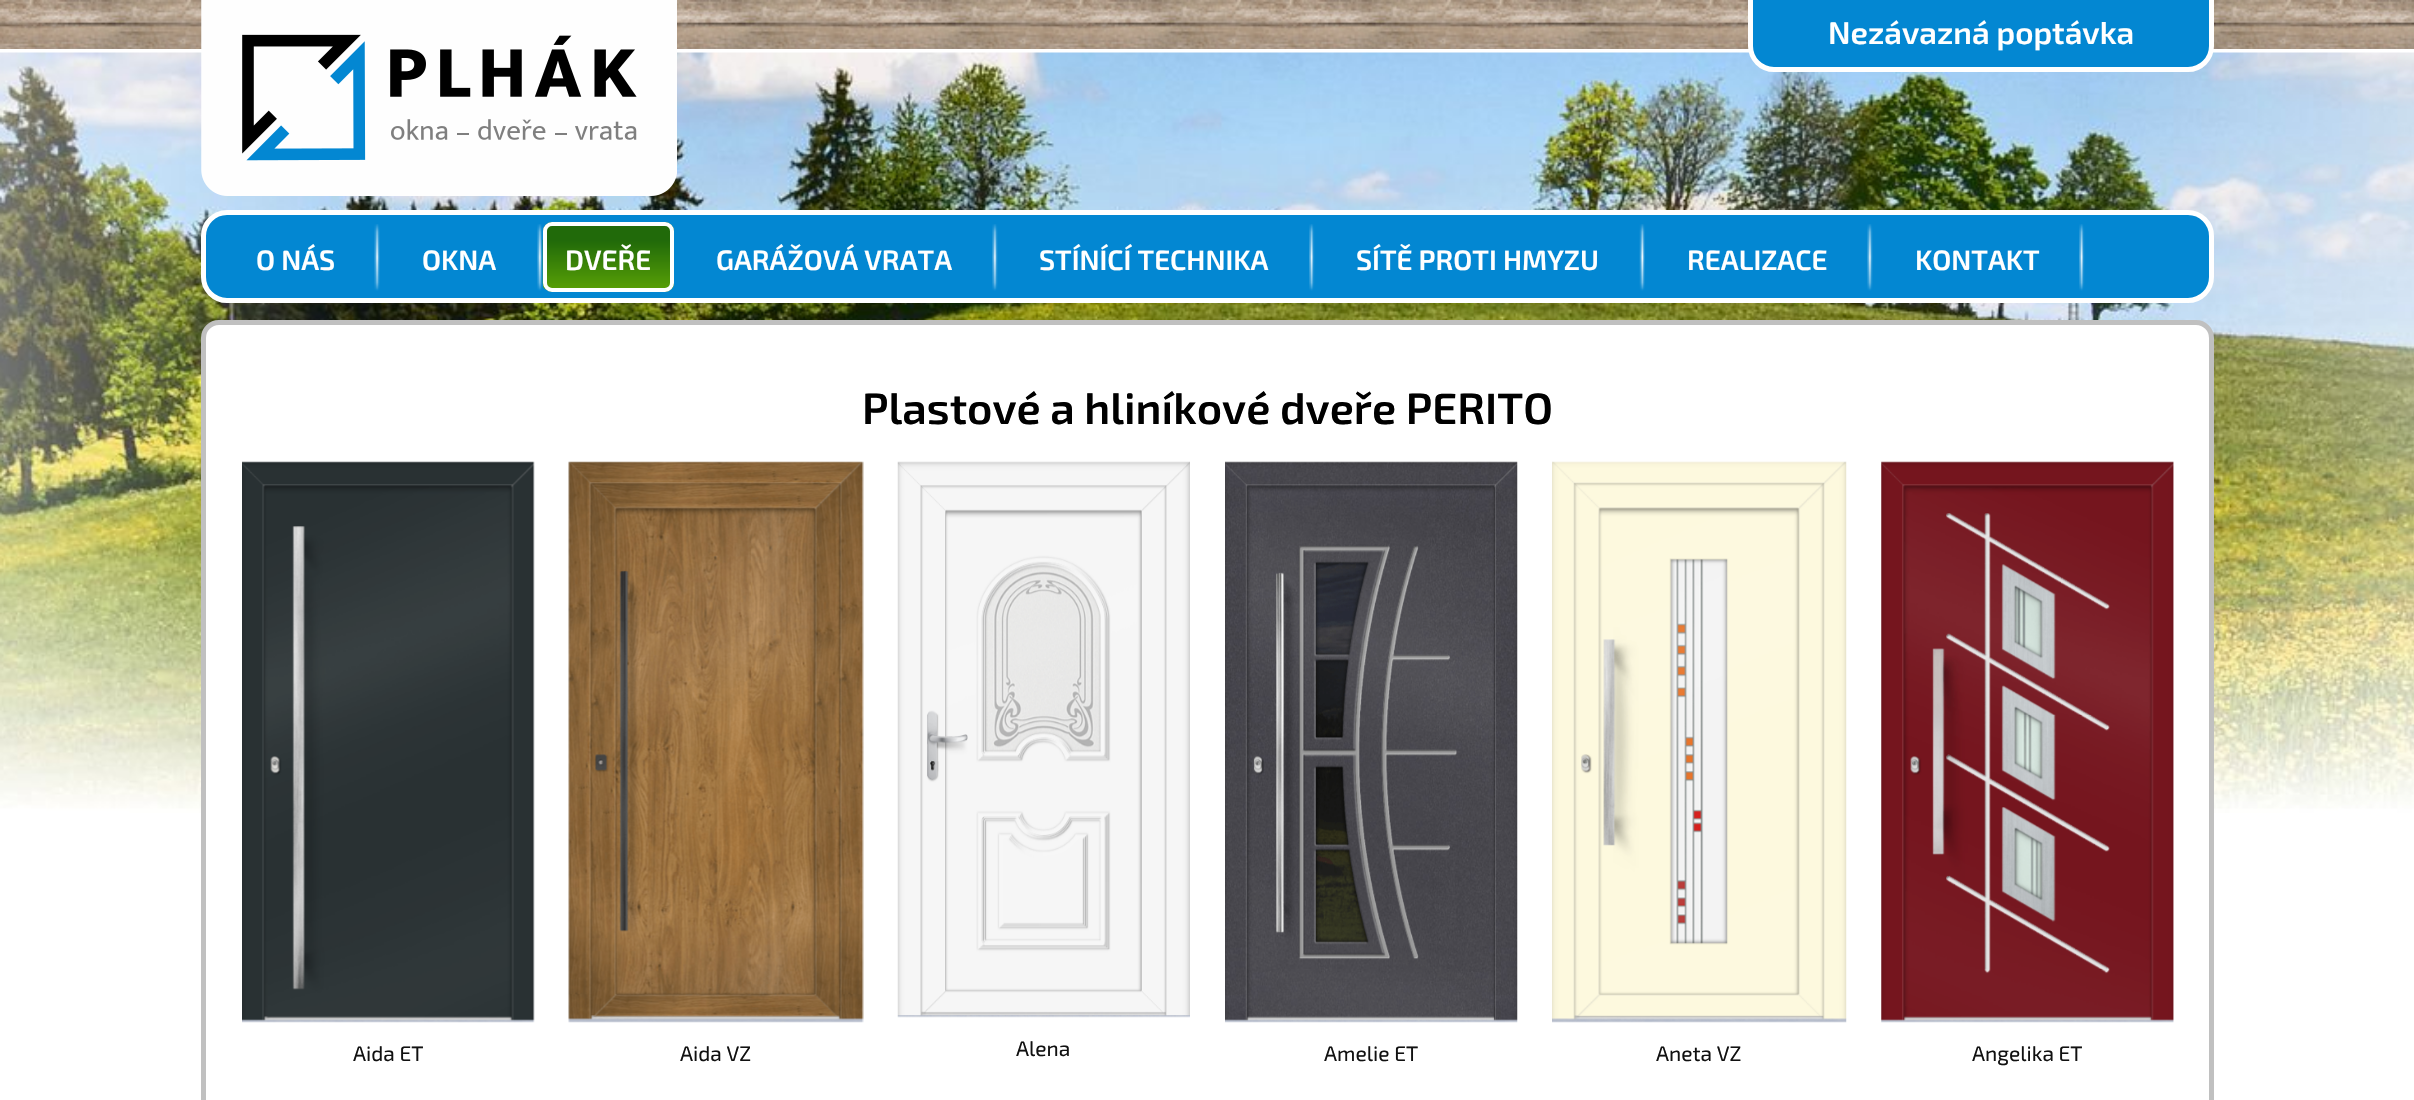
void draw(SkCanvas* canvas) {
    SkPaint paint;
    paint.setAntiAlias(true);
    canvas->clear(0xFFFFFFFF);
    canvas->drawImageRect(SkImages::DeferredFromEncodedData(SkData::MakeFromFileName("img1.png")), SkRect::MakeXYWH(0, 0, 2414, 49), SkSamplingOptions());
    canvas->drawImageRect(SkImages::DeferredFromEncodedData(SkData::MakeFromFileName("img2.png")), SkRect::MakeXYWH(0, 52, 2414, 761), SkSamplingOptions());
    canvas->drawImageRect(SkImages::DeferredFromEncodedData(SkData::MakeFromFileName("img3.png")), SkRect::MakeXYWH(201, 0, 476, 196), SkSamplingOptions());
    paint.setColor(0xFF0387D2);
    canvas->drawPath(SkPathBuilder().moveTo(1750.5f, -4.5f).lineTo(2211.5f, -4.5f).lineTo(2211.5f, 46).cubicTo(2211.5f, 59, 2201, 69.5f, 2188, 69.5f).lineTo(1774, 69.5f).cubicTo(1761, 69.5f, 1750.5f, 59, 1750.5f, 46).close().detach(), paint);
    paint.setStyle(SkPaint::kStroke_Style);
    paint.setStrokeWidth(5);
    paint.setColor(0xFFFFFFFF);
    canvas->drawPath(SkPathBuilder().moveTo(1750.5f, -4.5f).lineTo(2211.5f, -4.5f).lineTo(2211.5f, 46).cubicTo(2211.5f, 59, 2201, 69.5f, 2188, 69.5f).lineTo(1774, 69.5f).cubicTo(1761, 69.5f, 1750.5f, 59, 1750.5f, 46).close().detach(), paint);
    SkFont font1(fontMgr->matchFamilyStyle("Exo 2", SkFontStyle(600, SkFontStyle::kNormal_Width, SkFontStyle::kUpright_Slant)), 31.5f);
    font1.setSubpixel(true);
    paint.setStyle(SkPaint::kFill_Style);
    canvas->drawString("Nezávazná poptávka", 1828, 44, font1, paint);
    paint.setColor(0xFF0387D2);
    canvas->drawRoundRect(SkRect::MakeXYWH(203.5f, 212.5f, 2008, 88), 23.5f, 23.5f, paint);
    paint.setStyle(SkPaint::kStroke_Style);
    paint.setColor(0xFFFFFFFF);
    canvas->drawRoundRect(SkRect::MakeXYWH(203.5f, 212.5f, 2008, 88), 23.5f, 23.5f, paint);
    canvas->drawImageRect(SkImages::DeferredFromEncodedData(SkData::MakeFromFileName("img4.png")), SkRect::MakeXYWH(374, 224, 6, 67), SkSamplingOptions());
    SkFont font2(fontMgr->matchFamilyStyle("Exo 2", SkFontStyle(600, SkFontStyle::kNormal_Width, SkFontStyle::kUpright_Slant)), 28);
    font2.setSubpixel(true);
    paint.setStyle(SkPaint::kFill_Style);
    canvas->drawString("O NÁS", 256, 270, font2, paint);
    canvas->drawImageRect(SkImages::DeferredFromEncodedData(SkData::MakeFromFileName("img5.png")), SkRect::MakeXYWH(537, 224, 6, 67), SkSamplingOptions());
    canvas->drawString("OKNA", 422, 270, font2, paint);
    paint.setColor(0xFF216A0A);
    canvas->drawRoundRect(SkRect::MakeXYWH(543, 222, 131, 70), 9, 9, paint);
    canvas->drawImageRect(SkImages::DeferredFromEncodedData(SkData::MakeFromFileName("img6.png")), SkRect::MakeXYWH(542, 239, 132, 50), SkSamplingOptions());
    paint.setStyle(SkPaint::kStroke_Style);
    paint.setStrokeWidth(4);
    paint.setColor(0xFFFFFFFF);
    canvas->drawRoundRect(SkRect::MakeXYWH(545, 224, 127, 66), 7, 7, paint);
    paint.setStyle(SkPaint::kFill_Style);
    canvas->drawString("DVEŘE", 565, 270, font2, paint);
    canvas->drawImageRect(SkImages::DeferredFromEncodedData(SkData::MakeFromFileName("img5.png")), SkRect::MakeXYWH(992, 224, 6, 67), SkSamplingOptions());
    canvas->drawString("GARÁŽOVÁ VRATA", 716, 270, font2, paint);
    canvas->drawImageRect(SkImages::DeferredFromEncodedData(SkData::MakeFromFileName("img7.png")), SkRect::MakeXYWH(1309, 224, 6, 67), SkSamplingOptions());
    canvas->drawString("STÍNÍCÍ TECHNIKA", 1039, 270, font2, paint);
    canvas->drawImageRect(SkImages::DeferredFromEncodedData(SkData::MakeFromFileName("img8.png")), SkRect::MakeXYWH(1639, 224, 6, 67), SkSamplingOptions());
    canvas->drawString("SÍTĚ PROTI HMYZU", 1356, 270, font2, paint);
    canvas->drawImageRect(SkImages::DeferredFromEncodedData(SkData::MakeFromFileName("img5.png")), SkRect::MakeXYWH(1867, 224, 6, 67), SkSamplingOptions());
    canvas->drawString("REALIZACE", 1687, 270, font2, paint);
    canvas->drawImageRect(SkImages::DeferredFromEncodedData(SkData::MakeFromFileName("img7.png")), SkRect::MakeXYWH(2079, 224, 6, 67), SkSamplingOptions());
    canvas->drawString("KONTAKT", 1915, 270, font2, paint);
    canvas->drawRoundRect(SkRect::MakeXYWH(203.5f, 322.5f, 2008, 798), 15.5f, 15.5f, paint);
    paint.setStyle(SkPaint::kStroke_Style);
    paint.setStrokeWidth(5);
    paint.setColor(0xFFC0C0C0);
    canvas->drawRoundRect(SkRect::MakeXYWH(203.5f, 322.5f, 2008, 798), 15.5f, 15.5f, paint);
    SkFont font3(fontMgr->matchFamilyStyle("Exo 2", SkFontStyle(600, SkFontStyle::kNormal_Width, SkFontStyle::kUpright_Slant)), 43.75f);
    font3.setSubpixel(true);
    paint.setStyle(SkPaint::kFill_Style);
    paint.setColor(0xFF000000);
    canvas->drawString("Plastové a hliníkové dveře PERITO", 862, 424, font3, paint);
    canvas->drawImageRect(SkImages::DeferredFromEncodedData(SkData::MakeFromFileName("img9.png")), SkRect::MakeXYWH(242, 461, 293, 562), SkSamplingOptions());
    SkFont font4(fontMgr->matchFamilyStyle("Exo 2", SkFontStyle::Normal()), 21);
    font4.setSubpixel(true);
    paint.setColor(0xFF111111);
    canvas->drawString("Aida ET", 353, 1061, font4, paint);
    canvas->drawImageRect(SkImages::DeferredFromEncodedData(SkData::MakeFromFileName("img10.png")), SkRect::MakeXYWH(568, 461, 296, 562), SkSamplingOptions());
    canvas->drawString("Aida VZ", 680, 1061, font4, paint);
    canvas->drawImageRect(SkImages::DeferredFromEncodedData(SkData::MakeFromFileName("img11.png")), SkRect::MakeXYWH(897, 461, 293, 557), SkSamplingOptions());
    canvas->drawString("Alena", 1016, 1056, font4, paint);
    canvas->drawImageRect(SkImages::DeferredFromEncodedData(SkData::MakeFromFileName("img12.png")), SkRect::MakeXYWH(1225, 461, 293, 562), SkSamplingOptions());
    canvas->drawString("Amelie ET", 1324, 1061, font4, paint);
    canvas->drawImageRect(SkImages::DeferredFromEncodedData(SkData::MakeFromFileName("img13.png")), SkRect::MakeXYWH(1552, 461, 295, 562), SkSamplingOptions());
    canvas->drawString("Aneta VZ", 1656, 1061, font4, paint);
    canvas->drawImageRect(SkImages::DeferredFromEncodedData(SkData::MakeFromFileName("img14.png")), SkRect::MakeXYWH(1881, 461, 293, 562), SkSamplingOptions());
    canvas->drawString("Angelika ET", 1972, 1061, font4, paint);
}
